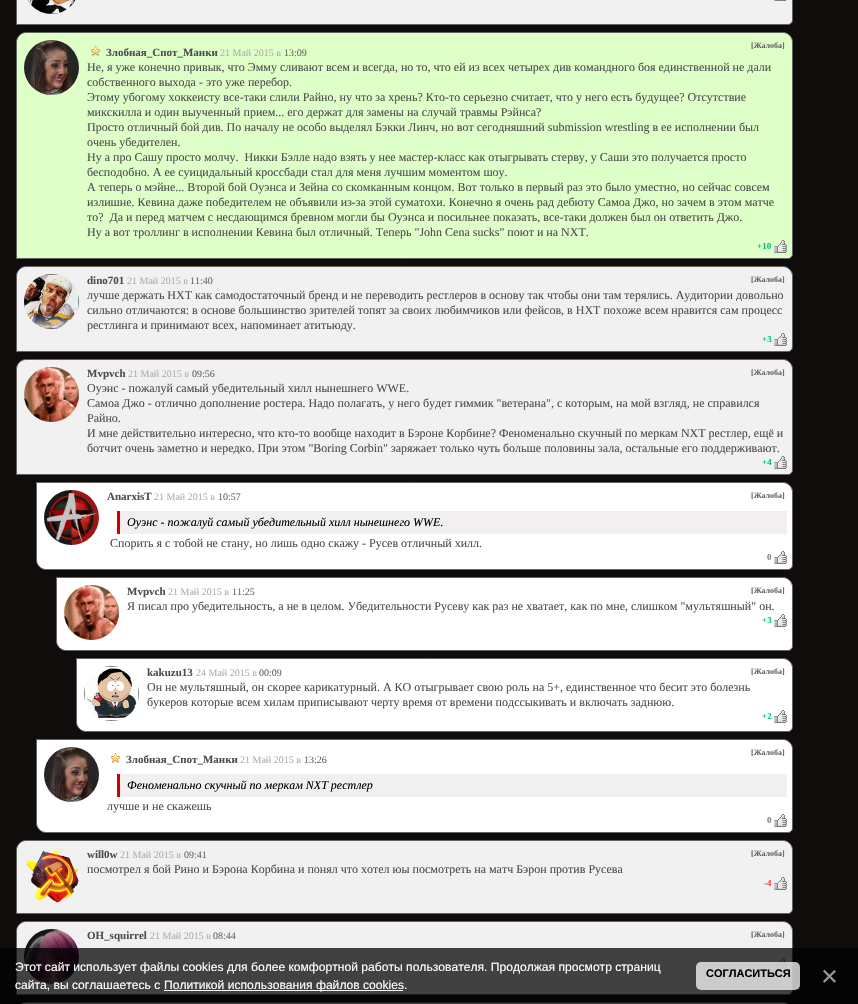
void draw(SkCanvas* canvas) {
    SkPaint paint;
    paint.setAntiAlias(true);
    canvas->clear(0xFF110C0C);
    paint.setColor(0xFFF1F1F1);
    canvas->drawPath(SkPathBuilder().moveTo(26, -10.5f).lineTo(783, -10.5f).cubicTo(788, -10.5f, 792.5f, -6, 792.5f, -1).lineTo(792.5f, 20).cubicTo(792.5f, 22.5f, 790.5f, 24.5f, 788, 24.5f).lineTo(16.5f, 24.5f).lineTo(16.5f, -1).cubicTo(16.5f, -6, 21, -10.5f, 26, -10.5f).close().detach(), paint);
    paint.setStyle(SkPaint::kStroke_Style);
    paint.setStrokeWidth(1);
    paint.setColor(0xFF626262);
    canvas->drawPath(SkPathBuilder().moveTo(26, -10.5f).lineTo(783, -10.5f).cubicTo(788, -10.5f, 792.5f, -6, 792.5f, -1).lineTo(792.5f, 20).cubicTo(792.5f, 22.5f, 790.5f, 24.5f, 788, 24.5f).lineTo(16.5f, 24.5f).lineTo(16.5f, -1).cubicTo(16.5f, -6, 21, -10.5f, 26, -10.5f).close().detach(), paint);
    canvas->drawImageRect(SkImages::DeferredFromEncodedData(SkData::MakeFromFileName("img1.png")), SkRect::MakeXYWH(27, 0, 49, 14), SkSamplingOptions());
    canvas->drawImageRect(SkImages::DeferredFromEncodedData(SkData::MakeFromFileName("img2.png")), SkRect::MakeXYWH(774, 0, 12, 1), SkSamplingOptions());
    paint.setStyle(SkPaint::kFill_Style);
    paint.setColor(0xFFDFFFC8);
    canvas->drawPath(SkPathBuilder().moveTo(26, 32.5f).lineTo(783, 32.5f).cubicTo(788, 32.5f, 792.5f, 37, 792.5f, 42).lineTo(792.5f, 254).cubicTo(792.5f, 256.5f, 790.5f, 258.5f, 788, 258.5f).lineTo(16.5f, 258.5f).lineTo(16.5f, 42).cubicTo(16.5f, 37, 21, 32.5f, 26, 32.5f).close().detach(), paint);
    paint.setStyle(SkPaint::kStroke_Style);
    paint.setColor(0xFF626262);
    canvas->drawPath(SkPathBuilder().moveTo(26, 32.5f).lineTo(783, 32.5f).cubicTo(788, 32.5f, 792.5f, 37, 792.5f, 42).lineTo(792.5f, 254).cubicTo(792.5f, 256.5f, 790.5f, 258.5f, 788, 258.5f).lineTo(16.5f, 258.5f).lineTo(16.5f, 42).cubicTo(16.5f, 37, 21, 32.5f, 26, 32.5f).close().detach(), paint);
    canvas->drawImageRect(SkImages::DeferredFromEncodedData(SkData::MakeFromFileName("img3.png")), SkRect::MakeXYWH(24, 40, 55, 55), SkSamplingOptions());
    canvas->drawImageRect(SkImages::DeferredFromEncodedData(SkData::MakeFromFileName("img4.png")), SkRect::MakeXYWH(91, 46, 9, 10), SkSamplingOptions());
    SkFont font1(fontMgr->matchFamilyStyle("Liberation Serif", SkFontStyle::Bold()), 11);
    font1.setSubpixel(true);
    paint.setStyle(SkPaint::kFill_Style);
    paint.setColor(0xFF4D4D4D);
    canvas->drawString("Злобная_Спот_Манки", 106, 56, font1, paint);
    SkFont font2(fontMgr->matchFamilyStyle("Liberation Serif", SkFontStyle::Normal()), 10);
    font2.setSubpixel(true);
    paint.setColor(0xFFADADAD);
    canvas->drawString("21 Май 2015 в", 220, 56, font2, paint);
    paint.setColor(0xFF666666);
    canvas->drawString("13:09", 284, 56, font2, paint);
    SkFont font3(fontMgr->matchFamilyStyle("Liberation Serif", SkFontStyle::Bold()), 8);
    font3.setSubpixel(true);
    canvas->drawString("[Жалоба]", 751, 48, font3, paint);
    SkFont font4(fontMgr->matchFamilyStyle("Liberation Serif", SkFontStyle::Normal()), 12);
    font4.setSubpixel(true);
    paint.setColor(0xFF4D4D4D);
    canvas->drawString("Не, я уже конечно привык, что Эмму сливают всем и всегда, но то, что ей из всех четырех див командного боя единственной не дали", 87, 71, font4, paint);
    canvas->drawString("собственного выхода - это уже перебор.", 87, 86, font4, paint);
    canvas->drawString("Этому убогому хоккеисту все-таки слили Райно, ну что за хрень? Кто-то серьезно считает, что у него есть будущее? Отсутствие", 87, 101, font4, paint);
    canvas->drawString("микскилла и один выученный прием... его держат для замены на случай травмы Рэйнса?", 87, 116, font4, paint);
    canvas->drawString("Просто отличный бой див. По началу не особо выделял Бэкки Линч, но вот сегодняшний submission wrestling в ее исполнении был", 87, 131, font4, paint);
    canvas->drawString("очень убедителен.", 87, 146, font4, paint);
    canvas->drawString("Ну а про Сашу просто молчу.  Никки Бэлле надо взять у нее мастер-класс как отыгрывать стерву, у Саши это получается просто", 87, 161, font4, paint);
    canvas->drawString("бесподобно. А ее суицидальный кроссбади стал для меня лучшим моментом шоу.", 87, 176, font4, paint);
    canvas->drawString("А теперь о мэйне... Второй бой Оуэнса и Зейна со скомканным концом. Вот только в первый раз это было уместно, но сейчас совсем", 87, 191, font4, paint);
    canvas->drawString("излишне. Кевина даже победителем не объявили из-за этой суматохи. Конечно я очень рад дебюту Самоа Джо, но зачем в этом матче", 87, 206, font4, paint);
    canvas->drawString("то?  Да и перед матчем с несдающимся бревном могли бы Оуэнса и посильнее показать, все-таки должен был он ответить Джо.", 87, 221, font4, paint);
    canvas->drawString("Ну а вот троллинг в исполнении Кевина был отличный. Теперь \"John Cena sucks\" поют и на NXT.", 87, 236, font4, paint);
    SkFont font5(fontMgr->matchFamilyStyle("Liberation Serif", SkFontStyle::Bold()), 9);
    font5.setSubpixel(true);
    paint.setColor(0xFF00C57C);
    canvas->drawString("+10", 757, 249, font5, paint);
    canvas->drawImageRect(SkImages::DeferredFromEncodedData(SkData::MakeFromFileName("img5.png")), SkRect::MakeXYWH(774, 240, 13, 13), SkSamplingOptions());
    paint.setColor(0xFFF1F1F1);
    canvas->drawPath(SkPathBuilder().moveTo(26, 266.5f).lineTo(783, 266.5f).cubicTo(788, 266.5f, 792.5f, 271, 792.5f, 276).lineTo(792.5f, 347).cubicTo(792.5f, 349.5f, 790.5f, 351.5f, 788, 351.5f).lineTo(16.5f, 351.5f).lineTo(16.5f, 276).cubicTo(16.5f, 271, 21, 266.5f, 26, 266.5f).close().detach(), paint);
    paint.setStyle(SkPaint::kStroke_Style);
    paint.setColor(0xFF626262);
    canvas->drawPath(SkPathBuilder().moveTo(26, 266.5f).lineTo(783, 266.5f).cubicTo(788, 266.5f, 792.5f, 271, 792.5f, 276).lineTo(792.5f, 347).cubicTo(792.5f, 349.5f, 790.5f, 351.5f, 788, 351.5f).lineTo(16.5f, 351.5f).lineTo(16.5f, 276).cubicTo(16.5f, 271, 21, 266.5f, 26, 266.5f).close().detach(), paint);
    canvas->drawImageRect(SkImages::DeferredFromEncodedData(SkData::MakeFromFileName("img6.png")), SkRect::MakeXYWH(24, 274, 55, 55), SkSamplingOptions());
    paint.setStyle(SkPaint::kFill_Style);
    paint.setColor(0xFF4D4D4D);
    canvas->drawString("dino701", 87, 284, font1, paint);
    paint.setColor(0xFFADADAD);
    canvas->drawString("21 Май 2015 в", 127, 284, font2, paint);
    paint.setColor(0xFF666666);
    canvas->drawString("11:40", 190, 284, font2, paint);
    canvas->drawString("[Жалоба]", 751, 282, font3, paint);
    paint.setColor(0xFF4D4D4D);
    canvas->drawString("лучше держать НХТ как самодостаточный бренд и не переводить рестлеров в основу так чтобы они там терялись. Аудитории довольно", 87, 299, font4, paint);
    canvas->drawString("сильно отличаются: в основе большинство зрителей топят за своих любимчиков или фейсов, в НХТ похоже всем нравится сам процесс", 87, 314, font4, paint);
    canvas->drawString("рестлинга и принимают всех, напоминает атитьюду.", 87, 329, font4, paint);
    paint.setColor(0xFF00C57C);
    canvas->drawString("+3", 762, 342, font5, paint);
    canvas->drawImageRect(SkImages::DeferredFromEncodedData(SkData::MakeFromFileName("img7.png")), SkRect::MakeXYWH(774, 333, 13, 13), SkSamplingOptions());
    paint.setColor(0xFFF1F1F1);
    canvas->drawPath(SkPathBuilder().moveTo(26, 359.5f).lineTo(783, 359.5f).cubicTo(788, 359.5f, 792.5f, 364, 792.5f, 369).lineTo(792.5f, 470).cubicTo(792.5f, 472.5f, 790.5f, 474.5f, 788, 474.5f).lineTo(16.5f, 474.5f).lineTo(16.5f, 369).cubicTo(16.5f, 364, 21, 359.5f, 26, 359.5f).close().detach(), paint);
    paint.setStyle(SkPaint::kStroke_Style);
    paint.setColor(0xFF626262);
    canvas->drawPath(SkPathBuilder().moveTo(26, 359.5f).lineTo(783, 359.5f).cubicTo(788, 359.5f, 792.5f, 364, 792.5f, 369).lineTo(792.5f, 470).cubicTo(792.5f, 472.5f, 790.5f, 474.5f, 788, 474.5f).lineTo(16.5f, 474.5f).lineTo(16.5f, 369).cubicTo(16.5f, 364, 21, 359.5f, 26, 359.5f).close().detach(), paint);
    canvas->drawImageRect(SkImages::DeferredFromEncodedData(SkData::MakeFromFileName("img8.png")), SkRect::MakeXYWH(24, 367, 55, 55), SkSamplingOptions());
    paint.setStyle(SkPaint::kFill_Style);
    paint.setColor(0xFF4D4D4D);
    canvas->drawString("Mvpvch", 87, 377, font1, paint);
    paint.setColor(0xFFADADAD);
    canvas->drawString("21 Май 2015 в", 128, 377, font2, paint);
    paint.setColor(0xFF666666);
    canvas->drawString("09:56", 192, 377, font2, paint);
    canvas->drawString("[Жалоба]", 751, 375, font3, paint);
    paint.setColor(0xFF4D4D4D);
    canvas->drawString("Оуэнс - пожалуй самый убедительный хилл нынешнего WWE.", 87, 392, font4, paint);
    canvas->drawString("Самоа Джо - отлично дополнение ростера. Надо полагать, у него будет гиммик \"ветерана\", с которым, на мой взгляд, не справился", 87, 407, font4, paint);
    canvas->drawString("Райно.", 87, 422, font4, paint);
    canvas->drawString("И мне действительно интересно, что кто-то вообще находит в Бэроне Корбине? Феноменально скучный по меркам NXT рестлер, ещё и", 87, 437, font4, paint);
    canvas->drawString("ботчит очень заметно и нередко. При этом \"Boring Corbin\" заряжает только чуть больше половины зала, остальные его поддерживают.", 87, 452, font4, paint);
    paint.setColor(0xFF00C57C);
    canvas->drawString("+4", 762, 465, font5, paint);
    canvas->drawImageRect(SkImages::DeferredFromEncodedData(SkData::MakeFromFileName("img7.png")), SkRect::MakeXYWH(774, 456, 13, 13), SkSamplingOptions());
    paint.setColor(0xFFFFFFFF);
    canvas->drawPath(SkPathBuilder().moveTo(36.5f, 482.5f).lineTo(783, 482.5f).cubicTo(788, 482.5f, 792.5f, 487, 792.5f, 492).lineTo(792.5f, 565).cubicTo(792.5f, 567.5f, 790.5f, 569.5f, 788, 569.5f).lineTo(46, 569.5f).cubicTo(41, 569.5f, 36.5f, 565, 36.5f, 560).close().detach(), paint);
    paint.setStyle(SkPaint::kStroke_Style);
    paint.setColor(0xFF626262);
    canvas->drawPath(SkPathBuilder().moveTo(36.5f, 482.5f).lineTo(783, 482.5f).cubicTo(788, 482.5f, 792.5f, 487, 792.5f, 492).lineTo(792.5f, 565).cubicTo(792.5f, 567.5f, 790.5f, 569.5f, 788, 569.5f).lineTo(46, 569.5f).cubicTo(41, 569.5f, 36.5f, 565, 36.5f, 560).close().detach(), paint);
    canvas->drawImageRect(SkImages::DeferredFromEncodedData(SkData::MakeFromFileName("img9.png")), SkRect::MakeXYWH(44, 490, 55, 55), SkSamplingOptions());
    paint.setStyle(SkPaint::kFill_Style);
    paint.setColor(0xFF4D4D4D);
    canvas->drawString("AnarxisT", 107, 500, font1, paint);
    paint.setColor(0xFFADADAD);
    canvas->drawString("21 Май 2015 в", 154, 500, font2, paint);
    paint.setColor(0xFF666666);
    canvas->drawString("10:57", 218, 500, font2, paint);
    canvas->drawString("[Жалоба]", 751, 498, font3, paint);
    paint.setColor(0xFFF1EFEF);
    canvas->drawRect(SkRect::MakeXYWH(120, 511, 667, 23), paint);
    paint.setColor(0xFFCE0000);
    canvas->drawRect(SkRect::MakeXYWH(117, 511, 3, 23), paint);
    SkFont font6(fontMgr->matchFamilyStyle("Liberation Serif", SkFontStyle::Italic()), 12);
    font6.setSubpixel(true);
    paint.setColor(0xFF000000);
    canvas->drawString("Оуэнс - пожалуй самый убедительный хилл нынешнего WWE.", 127, 526, font6, paint);
    paint.setColor(0xFF4D4D4D);
    canvas->drawString("Спорить я с тобой не стану, но лишь одно скажу - Русев отличный хилл.", 110, 547, font4, paint);
    paint.setColor(0xFF808080);
    canvas->drawString("0", 767, 560, font5, paint);
    canvas->drawImageRect(SkImages::DeferredFromEncodedData(SkData::MakeFromFileName("img10.png")), SkRect::MakeXYWH(774, 551, 13, 13), SkSamplingOptions());
    paint.setColor(0xFFFFFFFF);
    canvas->drawPath(SkPathBuilder().moveTo(56.5f, 577.5f).lineTo(783, 577.5f).cubicTo(788, 577.5f, 792.5f, 582, 792.5f, 587).lineTo(792.5f, 646).cubicTo(792.5f, 648.5f, 790.5f, 650.5f, 788, 650.5f).lineTo(66, 650.5f).cubicTo(61, 650.5f, 56.5f, 646, 56.5f, 641).close().detach(), paint);
    paint.setStyle(SkPaint::kStroke_Style);
    paint.setColor(0xFF626262);
    canvas->drawPath(SkPathBuilder().moveTo(56.5f, 577.5f).lineTo(783, 577.5f).cubicTo(788, 577.5f, 792.5f, 582, 792.5f, 587).lineTo(792.5f, 646).cubicTo(792.5f, 648.5f, 790.5f, 650.5f, 788, 650.5f).lineTo(66, 650.5f).cubicTo(61, 650.5f, 56.5f, 646, 56.5f, 641).close().detach(), paint);
    canvas->drawImageRect(SkImages::DeferredFromEncodedData(SkData::MakeFromFileName("img11.png")), SkRect::MakeXYWH(64, 585, 55, 55), SkSamplingOptions());
    paint.setStyle(SkPaint::kFill_Style);
    paint.setColor(0xFF4D4D4D);
    canvas->drawString("Mvpvch", 127, 595, font1, paint);
    paint.setColor(0xFFADADAD);
    canvas->drawString("21 Май 2015 в", 168, 595, font2, paint);
    paint.setColor(0xFF666666);
    canvas->drawString("11:25", 232, 595, font2, paint);
    canvas->drawString("[Жалоба]", 751, 593, font3, paint);
    paint.setColor(0xFF4D4D4D);
    canvas->drawString("Я писал про убедительность, а не в целом. Убедительности Русеву как раз не хватает, как по мне, слишком \"мультяшный\" он.", 127, 610, font4, paint);
    paint.setColor(0xFF00C57C);
    canvas->drawString("+3", 762, 623, font5, paint);
    canvas->drawImageRect(SkImages::DeferredFromEncodedData(SkData::MakeFromFileName("img10.png")), SkRect::MakeXYWH(774, 614, 13, 13), SkSamplingOptions());
    paint.setColor(0xFFFFFFFF);
    canvas->drawPath(SkPathBuilder().moveTo(76.5f, 658.5f).lineTo(783, 658.5f).cubicTo(788, 658.5f, 792.5f, 663, 792.5f, 668).lineTo(792.5f, 727).cubicTo(792.5f, 729.5f, 790.5f, 731.5f, 788, 731.5f).lineTo(86, 731.5f).cubicTo(81, 731.5f, 76.5f, 727, 76.5f, 722).close().detach(), paint);
    paint.setStyle(SkPaint::kStroke_Style);
    paint.setColor(0xFF626262);
    canvas->drawPath(SkPathBuilder().moveTo(76.5f, 658.5f).lineTo(783, 658.5f).cubicTo(788, 658.5f, 792.5f, 663, 792.5f, 668).lineTo(792.5f, 727).cubicTo(792.5f, 729.5f, 790.5f, 731.5f, 788, 731.5f).lineTo(86, 731.5f).cubicTo(81, 731.5f, 76.5f, 727, 76.5f, 722).close().detach(), paint);
    canvas->drawImageRect(SkImages::DeferredFromEncodedData(SkData::MakeFromFileName("img12.png")), SkRect::MakeXYWH(84, 666, 55, 55), SkSamplingOptions());
    paint.setStyle(SkPaint::kFill_Style);
    paint.setColor(0xFF4D4D4D);
    canvas->drawString("kakuzu13", 147, 676, font1, paint);
    paint.setColor(0xFFADADAD);
    canvas->drawString("24 Май 2015 в", 196, 676, font2, paint);
    paint.setColor(0xFF666666);
    canvas->drawString("00:09", 259, 676, font2, paint);
    canvas->drawString("[Жалоба]", 751, 674, font3, paint);
    paint.setColor(0xFF4D4D4D);
    canvas->drawString("Он не мультяшный, он скорее карикатурный. А КО отыгрывает свою роль на 5+, единственное что бесит это болезнь", 147, 691, font4, paint);
    canvas->drawString("букеров которые всем хилам приписывают черту время от времени подссыкивать и включать заднюю.", 147, 706, font4, paint);
    paint.setColor(0xFF00C57C);
    canvas->drawString("+2", 762, 719, font5, paint);
    canvas->drawImageRect(SkImages::DeferredFromEncodedData(SkData::MakeFromFileName("img10.png")), SkRect::MakeXYWH(774, 710, 13, 13), SkSamplingOptions());
    paint.setColor(0xFFFFFFFF);
    canvas->drawPath(SkPathBuilder().moveTo(36.5f, 739.5f).lineTo(783, 739.5f).cubicTo(788, 739.5f, 792.5f, 744, 792.5f, 749).lineTo(792.5f, 828).cubicTo(792.5f, 830.5f, 790.5f, 832.5f, 788, 832.5f).lineTo(46, 832.5f).cubicTo(41, 832.5f, 36.5f, 828, 36.5f, 823).close().detach(), paint);
    paint.setStyle(SkPaint::kStroke_Style);
    paint.setColor(0xFF626262);
    canvas->drawPath(SkPathBuilder().moveTo(36.5f, 739.5f).lineTo(783, 739.5f).cubicTo(788, 739.5f, 792.5f, 744, 792.5f, 749).lineTo(792.5f, 828).cubicTo(792.5f, 830.5f, 790.5f, 832.5f, 788, 832.5f).lineTo(46, 832.5f).cubicTo(41, 832.5f, 36.5f, 828, 36.5f, 823).close().detach(), paint);
    canvas->drawImageRect(SkImages::DeferredFromEncodedData(SkData::MakeFromFileName("img13.png")), SkRect::MakeXYWH(44, 747, 55, 55), SkSamplingOptions());
    canvas->drawImageRect(SkImages::DeferredFromEncodedData(SkData::MakeFromFileName("img14.png")), SkRect::MakeXYWH(111, 753, 9, 10), SkSamplingOptions());
    paint.setStyle(SkPaint::kFill_Style);
    paint.setColor(0xFF4D4D4D);
    canvas->drawString("Злобная_Спот_Манки", 126, 763, font1, paint);
    paint.setColor(0xFFADADAD);
    canvas->drawString("21 Май 2015 в", 240, 763, font2, paint);
    paint.setColor(0xFF666666);
    canvas->drawString("13:26", 304, 763, font2, paint);
    canvas->drawString("[Жалоба]", 751, 755, font3, paint);
    paint.setColor(0xFFF1EFEF);
    canvas->drawRect(SkRect::MakeXYWH(120, 774, 667, 23), paint);
    paint.setColor(0xFFCE0000);
    canvas->drawRect(SkRect::MakeXYWH(117, 774, 3, 23), paint);
    paint.setColor(0xFF000000);
    canvas->drawString("Феноменально скучный по меркам NXT рестлер", 127, 789, font6, paint);
    paint.setColor(0xFF4D4D4D);
    canvas->drawString("лучше и не скажешь", 107, 810, font4, paint);
    paint.setColor(0xFF808080);
    canvas->drawString("0", 767, 823, font5, paint);
    canvas->drawImageRect(SkImages::DeferredFromEncodedData(SkData::MakeFromFileName("img10.png")), SkRect::MakeXYWH(774, 814, 13, 13), SkSamplingOptions());
    paint.setColor(0xFFF1F1F1);
    canvas->drawPath(SkPathBuilder().moveTo(26, 840.5f).lineTo(783, 840.5f).cubicTo(788, 840.5f, 792.5f, 845, 792.5f, 850).lineTo(792.5f, 909).cubicTo(792.5f, 911.5f, 790.5f, 913.5f, 788, 913.5f).lineTo(16.5f, 913.5f).lineTo(16.5f, 850).cubicTo(16.5f, 845, 21, 840.5f, 26, 840.5f).close().detach(), paint);
    paint.setStyle(SkPaint::kStroke_Style);
    paint.setColor(0xFF626262);
    canvas->drawPath(SkPathBuilder().moveTo(26, 840.5f).lineTo(783, 840.5f).cubicTo(788, 840.5f, 792.5f, 845, 792.5f, 850).lineTo(792.5f, 909).cubicTo(792.5f, 911.5f, 790.5f, 913.5f, 788, 913.5f).lineTo(16.5f, 913.5f).lineTo(16.5f, 850).cubicTo(16.5f, 845, 21, 840.5f, 26, 840.5f).close().detach(), paint);
    canvas->drawImageRect(SkImages::DeferredFromEncodedData(SkData::MakeFromFileName("img15.png")), SkRect::MakeXYWH(26, 848, 53, 55), SkSamplingOptions());
    paint.setStyle(SkPaint::kFill_Style);
    paint.setColor(0xFF4D4D4D);
    canvas->drawString("will0w", 87, 858, font1, paint);
    paint.setColor(0xFFADADAD);
    canvas->drawString("21 Май 2015 в", 120, 858, font2, paint);
    paint.setColor(0xFF666666);
    canvas->drawString("09:41", 184, 858, font2, paint);
    canvas->drawString("[Жалоба]", 751, 856, font3, paint);
    paint.setColor(0xFF4D4D4D);
    canvas->drawString("посмотрел я бой Рино и Бэрона Корбина и понял что хотел юы посмотреть на матч Бэрон против Русева", 87, 873, font4, paint);
    paint.setColor(0xFFFD4339);
    canvas->drawString("-4", 764, 886, font5, paint);
    canvas->drawImageRect(SkImages::DeferredFromEncodedData(SkData::MakeFromFileName("img7.png")), SkRect::MakeXYWH(774, 877, 13, 13), SkSamplingOptions());
    paint.setColor(0xFFF1F1F1);
    canvas->drawPath(SkPathBuilder().moveTo(26, 921.5f).lineTo(783, 921.5f).cubicTo(788, 921.5f, 792.5f, 926, 792.5f, 931).lineTo(792.5f, 990).cubicTo(792.5f, 992.5f, 790.5f, 994.5f, 788, 994.5f).lineTo(16.5f, 994.5f).lineTo(16.5f, 931).cubicTo(16.5f, 926, 21, 921.5f, 26, 921.5f).close().detach(), paint);
    paint.setStyle(SkPaint::kStroke_Style);
    paint.setColor(0xFF626262);
    canvas->drawPath(SkPathBuilder().moveTo(26, 921.5f).lineTo(783, 921.5f).cubicTo(788, 921.5f, 792.5f, 926, 792.5f, 931).lineTo(792.5f, 990).cubicTo(792.5f, 992.5f, 790.5f, 994.5f, 788, 994.5f).lineTo(16.5f, 994.5f).lineTo(16.5f, 931).cubicTo(16.5f, 926, 21, 921.5f, 26, 921.5f).close().detach(), paint);
    canvas->drawImageRect(SkImages::DeferredFromEncodedData(SkData::MakeFromFileName("img16.png")), SkRect::MakeXYWH(24, 929, 55, 55), SkSamplingOptions());
    paint.setStyle(SkPaint::kFill_Style);
    paint.setColor(0xFF4D4D4D);
    canvas->drawString("OH_squirrel", 87, 939, font1, paint);
    paint.setColor(0xFFADADAD);
    canvas->drawString("21 Май 2015 в", 150, 939, font2, paint);
    paint.setColor(0xFF666666);
    canvas->drawString("08:44", 213, 939, font2, paint);
    canvas->drawString("[Жалоба]", 751, 937, font3, paint);
    canvas->drawImageRect(SkImages::DeferredFromEncodedData(SkData::MakeFromFileName("img7.png")), SkRect::MakeXYWH(774, 958, 13, 13), SkSamplingOptions());
    paint.setColor(0xFFF1F1F1);
    canvas->drawPath(SkPathBuilder().moveTo(26, 1002.5f).lineTo(783, 1002.5f).cubicTo(788, 1002.5f, 792.5f, 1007, 792.5f, 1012).lineTo(792.5f, 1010).cubicTo(792.5f, 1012.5f, 790.5f, 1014.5f, 788, 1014.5f).lineTo(16.5f, 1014.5f).lineTo(16.5f, 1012).cubicTo(16.5f, 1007, 21, 1002.5f, 26, 1002.5f).close().detach(), paint);
    paint.setStyle(SkPaint::kStroke_Style);
    paint.setColor(0xFF626262);
    canvas->drawPath(SkPathBuilder().moveTo(26, 1002.5f).lineTo(783, 1002.5f).cubicTo(788, 1002.5f, 792.5f, 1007, 792.5f, 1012).lineTo(792.5f, 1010).cubicTo(792.5f, 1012.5f, 790.5f, 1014.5f, 788, 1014.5f).lineTo(16.5f, 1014.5f).lineTo(16.5f, 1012).cubicTo(16.5f, 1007, 21, 1002.5f, 26, 1002.5f).close().detach(), paint);
    paint.setStyle(SkPaint::kFill_Style);
    paint.setColor(0xBA000000);
    canvas->drawRect(SkRect::MakeXYWH(0, 948, 858, 56), paint);
    SkFont font7(fontMgr->matchFamilyStyle("Liberation Sans", SkFontStyle::Normal()), 12.1f);
    font7.setSubpixel(true);
    paint.setColor(0xFFFFFFFF);
    canvas->drawString("Этот сайт использует файлы cookies для более комфортной работы пользователя. Продолжая просмотр страниц", 15, 971, font7, paint);
    canvas->drawString("сайта, вы соглашаетесь с", 15, 989, font7, paint);
    canvas->drawRect(SkRect::MakeXYWH(164, 990, 239, 1), paint);
    canvas->drawString("Политикой использования файлов cookies.", 164, 989, font7, paint);
    paint.setColor(0xBAFFFFFF);
    canvas->drawRoundRect(SkRect::MakeXYWH(696, 962, 104, 28), 5, 5, paint);
    SkFont font8(fontMgr->matchFamilyStyle("Liberation Sans", SkFontStyle::Bold()), 11);
    font8.setSubpixel(true);
    paint.setColor(0xFF000000);
    canvas->drawString("СОГЛАСИТЬСЯ", 706, 977, font8, paint);
    SkFont font9(fontMgr->matchFamilyStyle("Liberation Sans", SkFontStyle::Normal()), 29);
    font9.setSubpixel(true);
    paint.setColor(0xFF999999);
    canvas->drawString("×", 821, 986, font9, paint);
}
